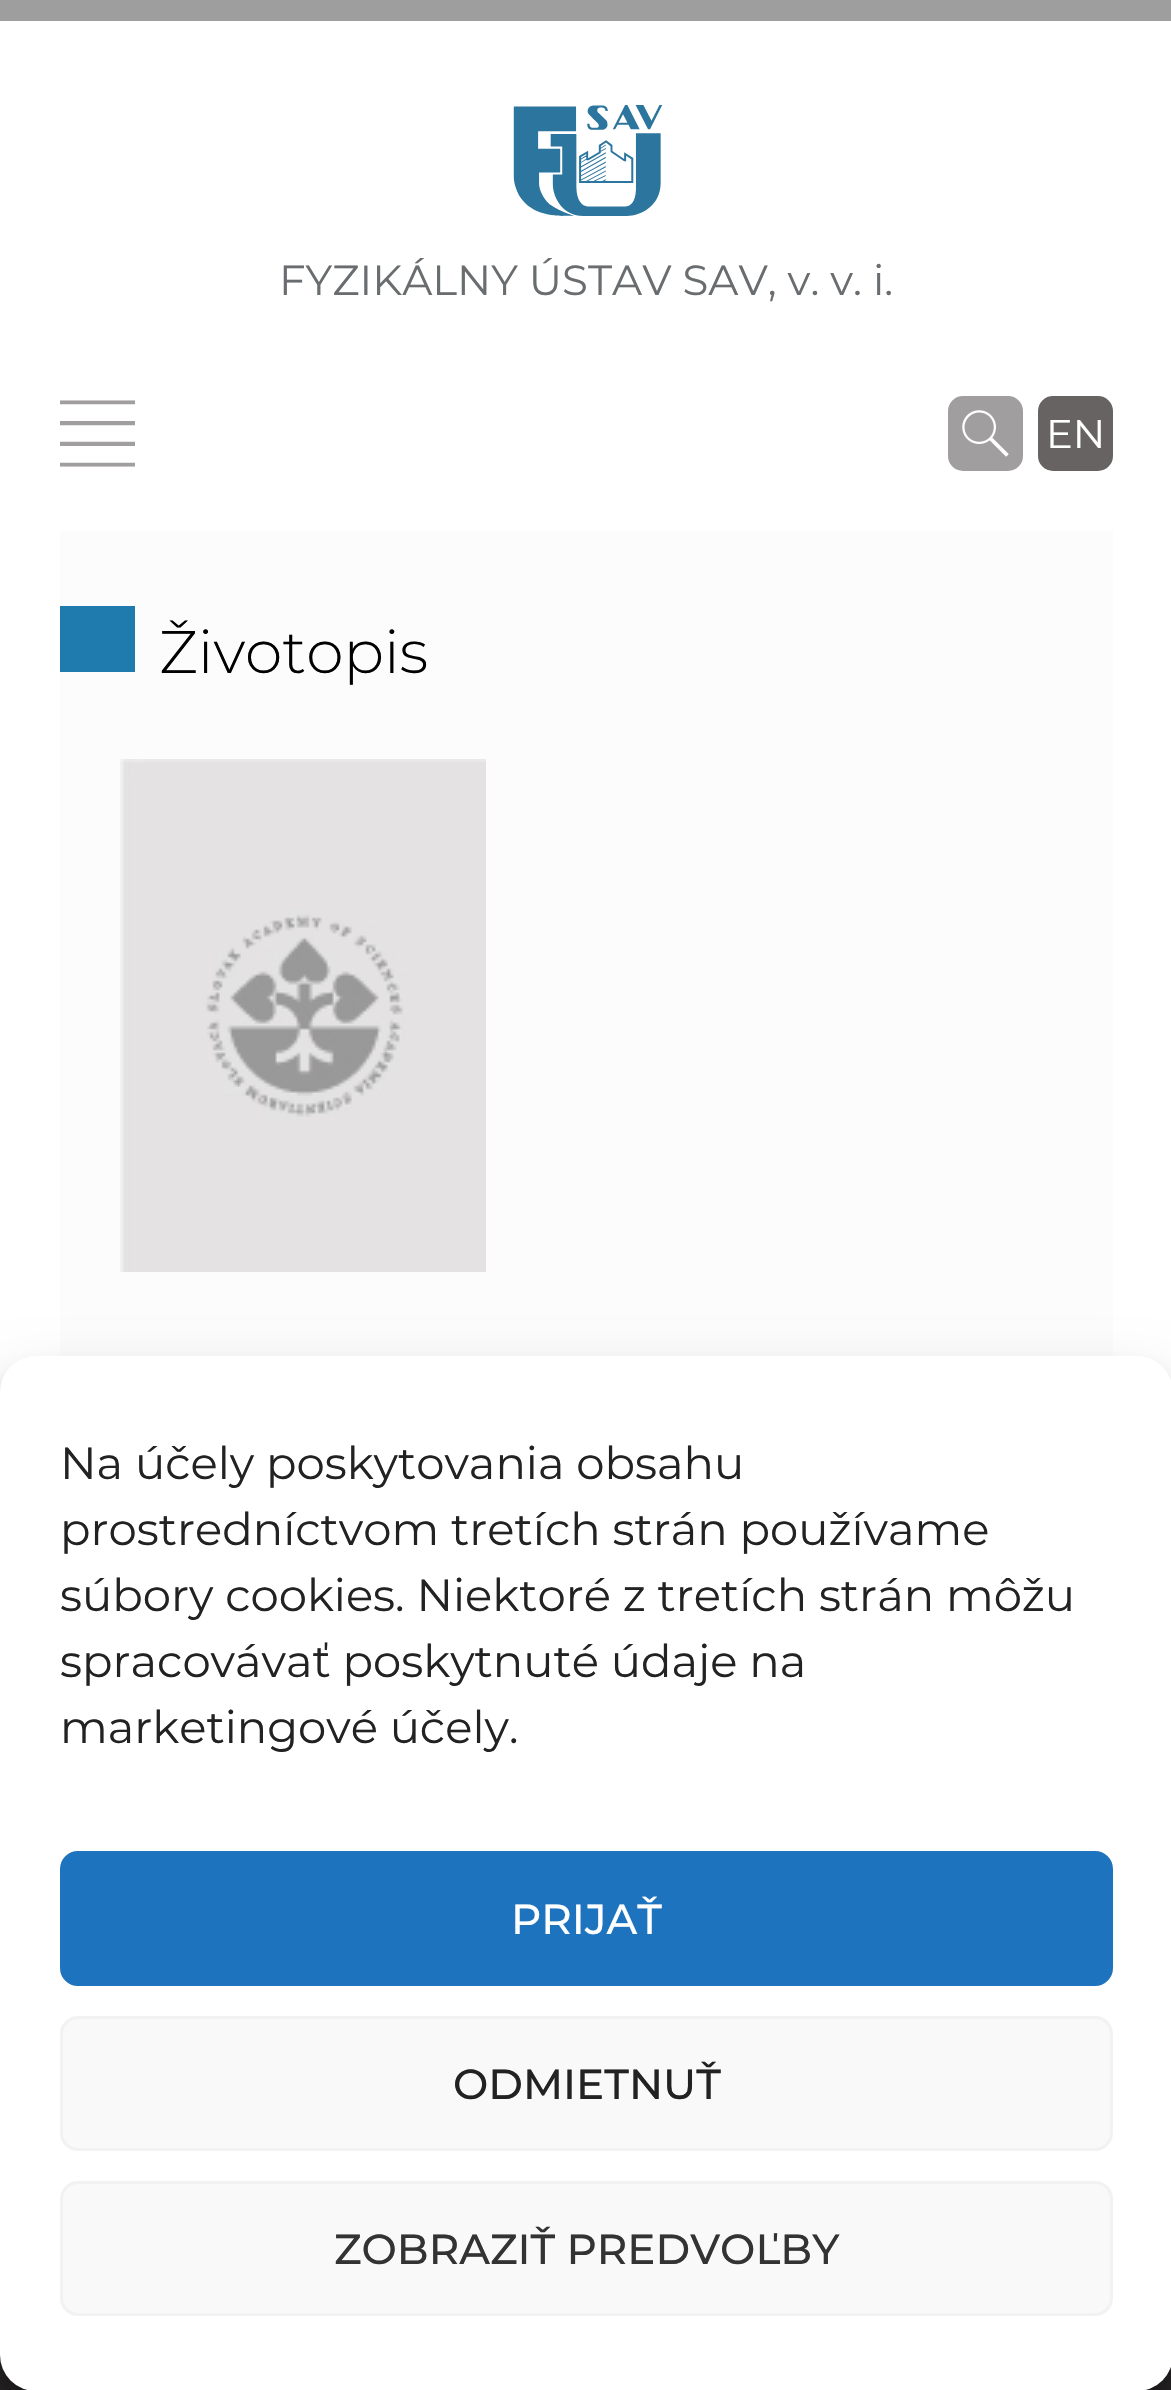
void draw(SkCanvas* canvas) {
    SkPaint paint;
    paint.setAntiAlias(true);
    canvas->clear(0xFFFFFFFF);
    paint.setColor(0xFF9F9E9E);
    canvas->drawRect(SkRect::MakeXYWH(0, 0, 1171, 21), paint);
    canvas->drawImageRect(SkImages::DeferredFromEncodedData(SkData::MakeFromFileName("img1.png")), SkRect::MakeXYWH(513, 105, 150, 111), SkSamplingOptions());
    SkFont font1(fontMgr->matchFamilyStyle("Montserrat", SkFontStyle::Normal()), 42);
    font1.setSubpixel(true);
    paint.setColor(0xFF6A6D6F);
    canvas->drawString("FYZIKÁLNY ÚSTAV SAV, v. v. i.", 279, 295, font1, paint);
    canvas->drawImageRect(SkImages::DeferredFromEncodedData(SkData::MakeFromFileName("img2.png")), SkRect::MakeXYWH(60, 400, 75, 67), SkSamplingOptions());
    paint.setColor(0xFFA09E9E);
    canvas->drawRoundRect(SkRect::MakeXYWH(948, 396, 75, 75), 15, 15, paint);
    canvas->drawImageRect(SkImages::DeferredFromEncodedData(SkData::MakeFromFileName("img3.png")), SkRect::MakeXYWH(962, 410, 47, 47), SkSamplingOptions());
    paint.setColor(0xFF676363);
    canvas->drawRoundRect(SkRect::MakeXYWH(1038, 396, 75, 75), 15, 15, paint);
    SkFont font2(fontMgr->matchFamilyStyle("Montserrat", SkFontStyle::Normal()), 40);
    font2.setSubpixel(true);
    paint.setColor(0xFFFFFFFF);
    canvas->drawString("EN", 1046, 448, font2, paint);
    paint.setColor(0xFFFCFCFC);
    canvas->drawRect(SkRect::MakeXYWH(60, 531, 1053, 825), paint);
    paint.setColor(0xFF1F7BAD);
    canvas->drawRect(SkRect::MakeXYWH(60, 606, 75, 66), paint);
    SkFont font3(fontMgr->matchFamilyStyle("Montserrat", SkFontStyle(300, SkFontStyle::kNormal_Width, SkFontStyle::kUpright_Slant)), 60);
    font3.setSubpixel(true);
    paint.setColor(0xFF000000);
    canvas->drawString("Životopis", 159, 673, font3, paint);
    canvas->drawImageRect(SkImages::DeferredFromEncodedData(SkData::MakeFromFileName("img4.png")), SkRect::MakeXYWH(120, 759, 366, 513), SkSamplingOptions());
    paint.setColor(0xFF272526);
    canvas->drawRect(SkRect::MakeXYWH(0, 2355, 1171, 35), paint);
    paint.setColor(0x3B000000);
    paint.setMaskFilter(SkMaskFilter::MakeBlur(kNormal_SkBlurStyle, 9));
    canvas->drawRoundRect(SkRect::MakeXYWH(0, 1374, 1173, 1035), 36, 36, paint);
    paint.setMaskFilter(nullptr);
    paint.setColor(0x30000000);
    paint.setMaskFilter(SkMaskFilter::MakeBlur(kNormal_SkBlurStyle, 30));
    canvas->drawRoundRect(SkRect::MakeXYWH(0, 1386, 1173, 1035), 36, 36, paint);
    paint.setMaskFilter(nullptr);
    paint.setColor(0xFFFFFFFF);
    canvas->drawRoundRect(SkRect::MakeXYWH(0, 1356, 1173, 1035), 36, 36, paint);
    SkFont font4(fontMgr->matchFamilyStyle("Montserrat", SkFontStyle::Normal()), 45);
    font4.setSubpixel(true);
    paint.setColor(0xFF222222);
    canvas->drawString("Na účely poskytovania obsahu", 60, 1479, font4, paint);
    canvas->drawString("prostredníctvom tretích strán používame", 60, 1545, font4, paint);
    canvas->drawString("súbory cookies. Niektoré z tretích strán môžu", 60, 1611, font4, paint);
    canvas->drawString("spracovávať poskytnuté údaje na", 60, 1677, font4, paint);
    canvas->drawString("marketingové účely.", 60, 1743, font4, paint);
    paint.setColor(0xFF1E73BE);
    canvas->drawRoundRect(SkRect::MakeXYWH(61.5f, 1852.5f, 1050, 132), 16.5f, 16.5f, paint);
    paint.setStyle(SkPaint::kStroke_Style);
    paint.setStrokeWidth(3);
    canvas->drawRoundRect(SkRect::MakeXYWH(61.5f, 1852.5f, 1050, 132), 16.5f, 16.5f, paint);
    SkFont font5(fontMgr->matchFamilyStyle("Montserrat", SkFontStyle(500, SkFontStyle::kNormal_Width, SkFontStyle::kUpright_Slant)), 42);
    font5.setSubpixel(true);
    paint.setStyle(SkPaint::kFill_Style);
    paint.setColor(0xFFFFFFFF);
    canvas->drawString("PRIJAŤ", 511, 1934, font5, paint);
    paint.setColor(0xFFF9F9F9);
    canvas->drawRoundRect(SkRect::MakeXYWH(61.5f, 2017.5f, 1050, 132), 16.5f, 16.5f, paint);
    paint.setStyle(SkPaint::kStroke_Style);
    paint.setColor(0xFFF2F2F2);
    canvas->drawRoundRect(SkRect::MakeXYWH(61.5f, 2017.5f, 1050, 132), 16.5f, 16.5f, paint);
    paint.setStyle(SkPaint::kFill_Style);
    paint.setColor(0xFF222222);
    canvas->drawString("ODMIETNUŤ", 453, 2099, font5, paint);
    paint.setColor(0xFFF9F9F9);
    canvas->drawRoundRect(SkRect::MakeXYWH(61.5f, 2182.5f, 1050, 132), 16.5f, 16.5f, paint);
    paint.setStyle(SkPaint::kStroke_Style);
    paint.setColor(0xFFF2F2F2);
    canvas->drawRoundRect(SkRect::MakeXYWH(61.5f, 2182.5f, 1050, 132), 16.5f, 16.5f, paint);
    paint.setStyle(SkPaint::kFill_Style);
    paint.setColor(0xFF333333);
    canvas->drawString("ZOBRAZIŤ PREDVOĽBY", 334, 2264, font5, paint);
}
